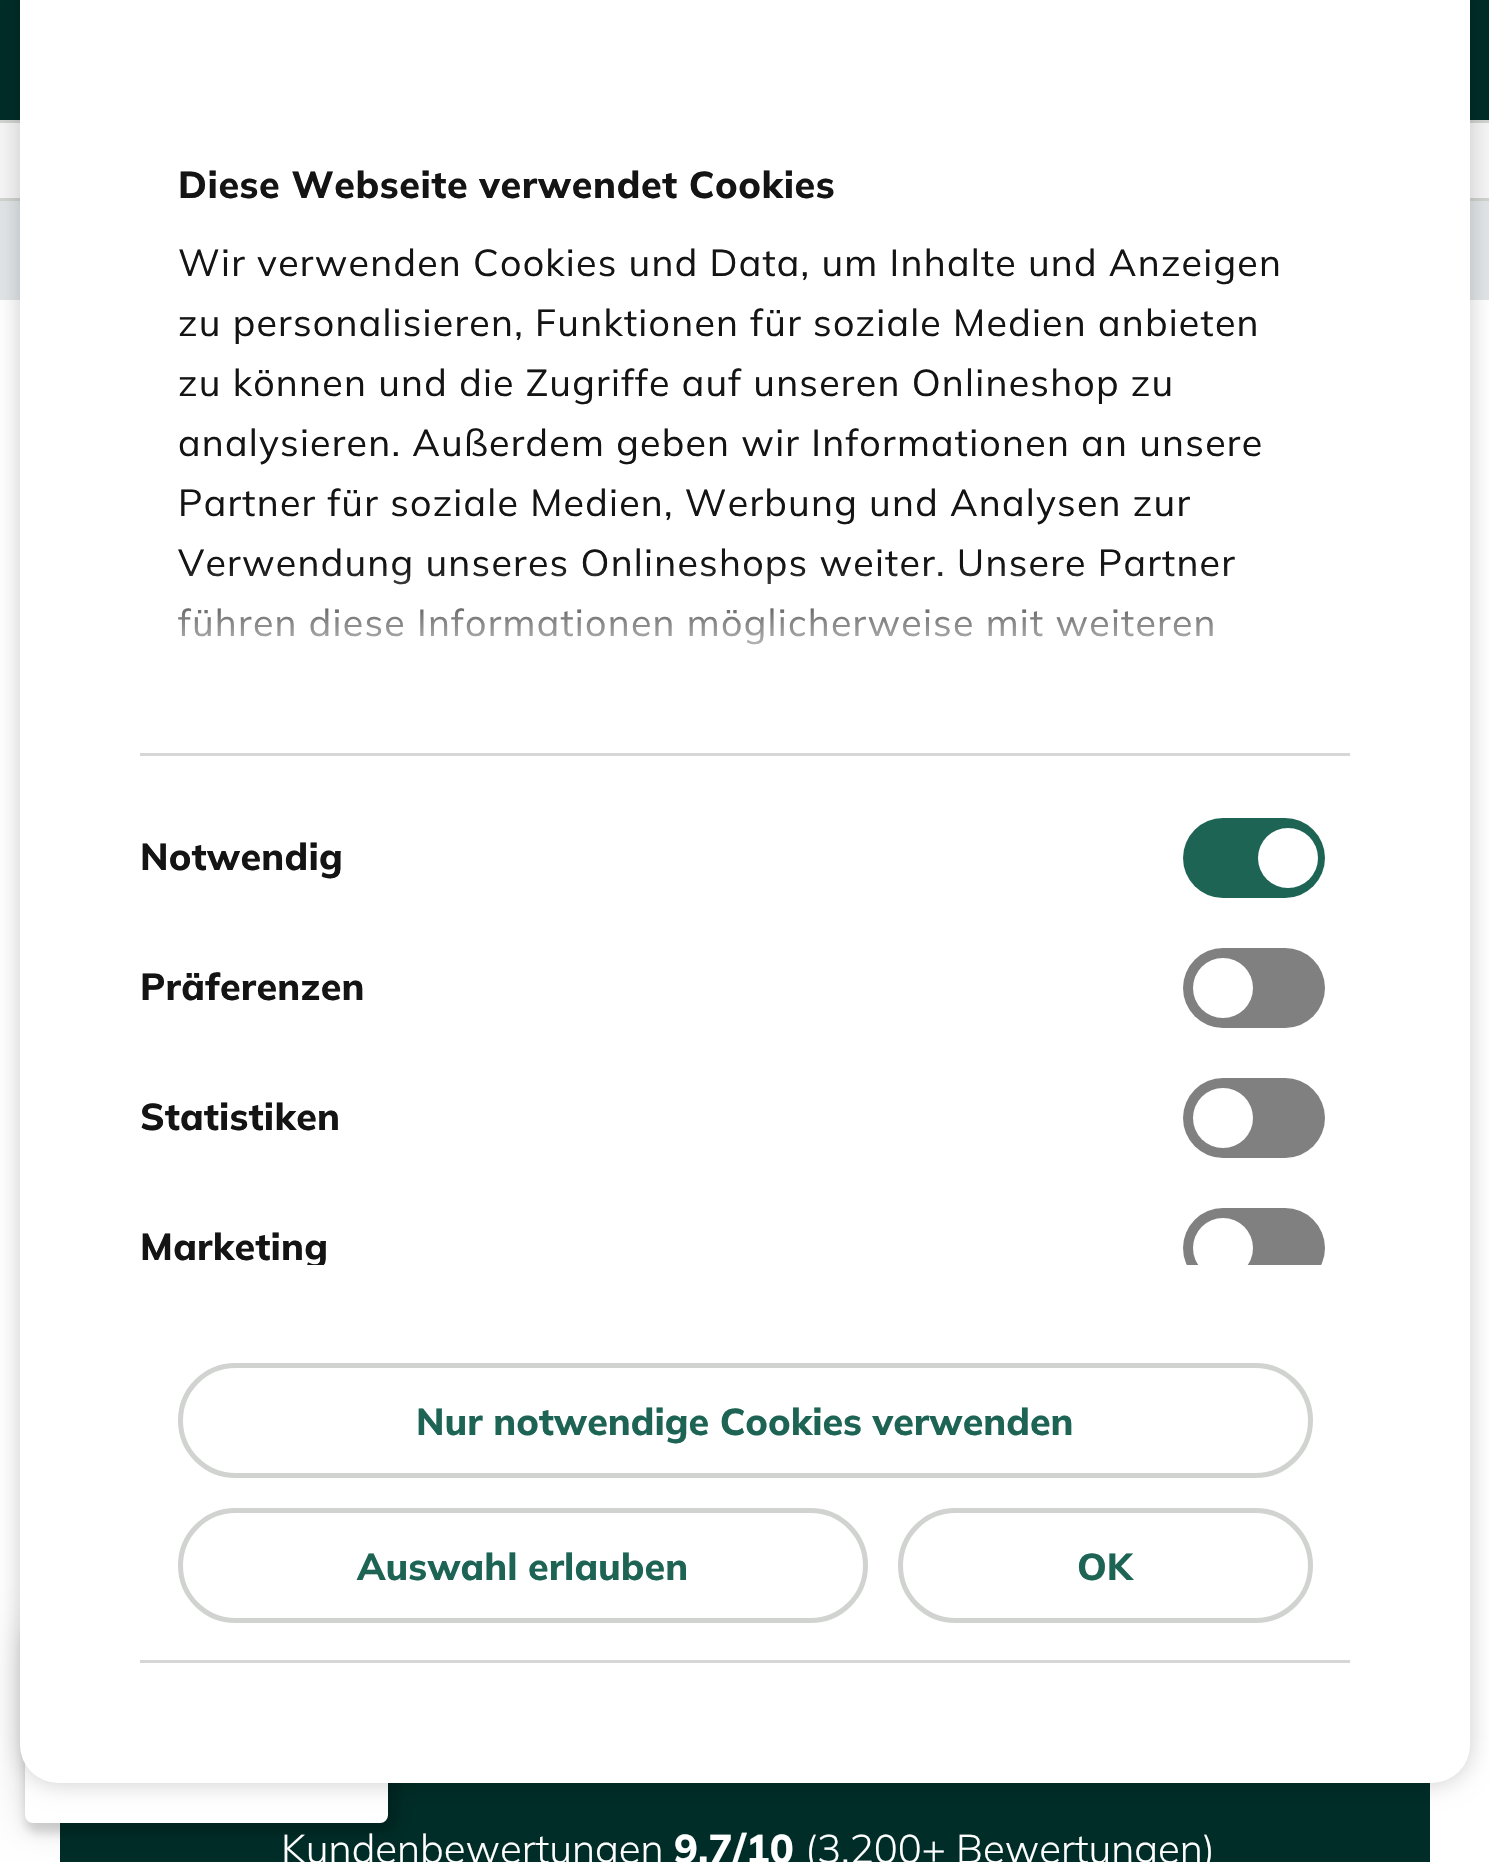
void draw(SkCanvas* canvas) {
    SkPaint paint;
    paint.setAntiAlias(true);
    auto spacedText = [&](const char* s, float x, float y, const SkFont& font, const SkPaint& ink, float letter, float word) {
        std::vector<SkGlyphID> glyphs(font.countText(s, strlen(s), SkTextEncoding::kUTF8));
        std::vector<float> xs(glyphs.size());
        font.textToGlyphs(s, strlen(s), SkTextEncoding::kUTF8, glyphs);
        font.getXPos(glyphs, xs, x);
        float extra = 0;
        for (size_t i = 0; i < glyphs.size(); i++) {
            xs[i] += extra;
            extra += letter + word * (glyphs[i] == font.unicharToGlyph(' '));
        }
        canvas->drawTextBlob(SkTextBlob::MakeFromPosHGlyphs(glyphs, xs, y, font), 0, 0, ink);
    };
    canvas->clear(0xFFFFFFFF);
    paint.setColor(0xFF002D28);
    canvas->drawRect(SkRect::MakeXYWH(0, 0, 1489, 120), paint);
    paint.setColor(0xFFF6F6F6);
    canvas->drawRect(SkRect::MakeXYWH(0, 123, 20, 75), paint);
    paint.setColor(0xFFD0D3D0);
    canvas->drawRect(SkRect::MakeXYWH(0, 120, 20, 3), paint);
    canvas->drawRect(SkRect::MakeXYWH(0, 198, 20, 3), paint);
    paint.setColor(0xFFF6F6F6);
    canvas->drawRect(SkRect::MakeXYWH(1470, 123, 19, 75), paint);
    paint.setColor(0xFFD0D3D0);
    canvas->drawRect(SkRect::MakeXYWH(1470, 120, 19, 3), paint);
    canvas->drawRect(SkRect::MakeXYWH(1470, 198, 19, 3), paint);
    paint.setColor(0xFFE1E5E7);
    canvas->drawRect(SkRect::MakeXYWH(0, 201, 1489, 99), paint);
    paint.setColor(0xFF002D28);
    canvas->drawRect(SkRect::MakeXYWH(60, 1783, 1370, 79), paint);
    paint.setColor(0x26000000);
    paint.setMaskFilter(SkMaskFilter::MakeBlur(kNormal_SkBlurStyle, 19));
    canvas->drawRoundRect(SkRect::MakeXYWH(25, 1628, 363, 195), 8, 8, paint);
    paint.setMaskFilter(nullptr);
    paint.setMaskFilter(SkMaskFilter::MakeBlur(kNormal_SkBlurStyle, 5));
    canvas->drawRoundRect(SkRect::MakeXYWH(25, 1628, 373, 205), 13, 13, paint);
    paint.setMaskFilter(nullptr);
    paint.setColor(0xFFFFFFFF);
    canvas->drawRoundRect(SkRect::MakeXYWH(25, 1628, 363, 195), 8, 8, paint);
    paint.setColor(0x33000000);
    paint.setMaskFilter(SkMaskFilter::MakeBlur(kNormal_SkBlurStyle, 12.5f));
    canvas->drawRoundRect(SkRect::MakeXYWH(20, -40, 1450, 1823), 38, 38, paint);
    paint.setMaskFilter(nullptr);
    paint.setColor(0xFFFFFFFF);
    canvas->drawRoundRect(SkRect::MakeXYWH(20, -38, 1450, 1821), 38, 38, paint);
    paint.setColor(0xFFD6D6D6);
    canvas->drawRect(SkRect::MakeXYWH(140, 753, 1210, 3), paint);
    SkFont font1(fontMgr->matchFamilyStyle("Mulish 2", SkFontStyle(200, SkFontStyle::kNormal_Width, SkFontStyle::kUpright_Slant)), 37.5f);
    font1.setSubpixel(true);
    paint.setColor(0xFF141414);
    spacedText("Diese Webseite verwendet Cookies", 178, 198, font1, paint, 0.6f, 0);
    SkFont font2(fontMgr->matchFamilyStyle("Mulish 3", SkFontStyle(200, SkFontStyle::kNormal_Width, SkFontStyle::kUpright_Slant)), 37.5f);
    font2.setSubpixel(true);
    spacedText("Wir verwenden Cookies und Data, um Inhalte und Anzeigen", 178, 276, font2, paint, 1.25f, 0);
    spacedText("zu personalisieren, Funktionen für soziale Medien anbieten", 178, 336, font2, paint, 1.25f, 0);
    spacedText("zu können und die Zugriffe auf unseren Onlineshop zu", 178, 396, font2, paint, 1.25f, 0);
    spacedText("analysieren. Außerdem geben wir Informationen an unsere", 178, 456, font2, paint, 1.25f, 0);
    spacedText("Partner für soziale Medien, Werbung und Analysen zur", 178, 516, font2, paint, 1.25f, 0);
    spacedText("Verwendung unseres Onlineshops weiter. Unsere Partner", 178, 576, font2, paint, 1.25f, 0);
    spacedText("führen diese Informationen möglicherweise mit weiteren", 178, 636, font2, paint, 1.25f, 0);
    {
        const SkColor colors[] = {0xFFFFFFFF, 0xCCFFFFFF, 0x00FFFFFF};
        const float stops[] = {0, 0.5f, 1};
        const SkPoint ends[] = {{729, 753}, {729, 565}};
        paint.setShader(SkGradientShader::MakeLinear(ends, colors, stops, 3, SkTileMode::kClamp));
        paint.setAlpha(255);
    }
    canvas->drawRect(SkRect::MakeXYWH(177, 568, 1050, 77), paint);
    paint.setShader(nullptr);
    paint.setColor(0xFF141414);
    spacedText("Notwendig", 140, 870, font1, paint, 0.25f, 0);
    paint.setColor(0xFF1E6455);
    canvas->drawRoundRect(SkRect::MakeXYWH(1183, 818, 142, 80), 40, 40, paint);
    paint.setColor(0xFFFFFFFF);
    canvas->drawCircle(1288, 858, 30, paint);
    paint.setColor(0xFF141414);
    spacedText("Präferenzen", 140, 1000, font1, paint, 0.25f, 0);
    paint.setColor(0xFF808080);
    canvas->drawRoundRect(SkRect::MakeXYWH(1183, 948, 142, 80), 40, 40, paint);
    paint.setColor(0xFFFFFFFF);
    canvas->drawCircle(1223, 988, 30, paint);
    paint.setColor(0xFF141414);
    spacedText("Statistiken", 140, 1130, font1, paint, 0.25f, 0);
    paint.setColor(0xFF808080);
    canvas->drawRoundRect(SkRect::MakeXYWH(1183, 1078, 142, 80), 40, 40, paint);
    paint.setColor(0xFFFFFFFF);
    canvas->drawCircle(1223, 1118, 30, paint);
    canvas->save();
    canvas->clipRect(SkRect::MakeXYWH(140, 80, 1210, 1185));
    paint.setColor(0xFF141414);
    spacedText("Marketing", 140, 1260, font1, paint, 0.25f, 0);
    paint.setColor(0xFF808080);
    canvas->drawRoundRect(SkRect::MakeXYWH(1183, 1208, 142, 80), 40, 40, paint);
    paint.setColor(0xFFFFFFFF);
    canvas->drawCircle(1223, 1248, 30, paint);
    canvas->restore();
    paint.setColor(0xFFD6D6D6);
    canvas->drawRect(SkRect::MakeXYWH(140, 1660, 1210, 3), paint);
    paint.setStyle(SkPaint::kStroke_Style);
    paint.setStrokeWidth(5);
    paint.setColor(0xFFD0D3D0);
    canvas->drawRoundRect(SkRect::MakeXYWH(180.5f, 1365.5f, 1130, 110), 55, 55, paint);
    paint.setStyle(SkPaint::kFill_Style);
    paint.setColor(0xFF1E6455);
    canvas->drawString("Nur notwendige Cookies verwenden", 416, 1435, font1, paint);
    paint.setStyle(SkPaint::kStroke_Style);
    paint.setColor(0xFFD0D3D0);
    canvas->drawRoundRect(SkRect::MakeXYWH(180.5f, 1510.5f, 685, 110), 55, 55, paint);
    paint.setStyle(SkPaint::kFill_Style);
    paint.setColor(0xFF1E6455);
    canvas->drawString("Auswahl erlauben", 357, 1580, font1, paint);
    paint.setStyle(SkPaint::kStroke_Style);
    paint.setColor(0xFFD0D3D0);
    canvas->drawRoundRect(SkRect::MakeXYWH(900.5f, 1510.5f, 410, 110), 55, 55, paint);
    paint.setStyle(SkPaint::kFill_Style);
    paint.setColor(0xFF1E6455);
    canvas->drawString("OK", 1077, 1580, font1, paint);
    SkFont font3(fontMgr->matchFamilyStyle("Mulish", SkFontStyle(200, SkFontStyle::kNormal_Width, SkFontStyle::kUpright_Slant)), 40);
    font3.setSubpixel(true);
    paint.setColor(0xFFFFFFFF);
    canvas->drawString("Kundenbewertungen", 281, 1863, font3, paint);
    SkFont font4(fontMgr->matchFamilyStyle("Mulish 2", SkFontStyle(200, SkFontStyle::kNormal_Width, SkFontStyle::kUpright_Slant)), 40);
    font4.setSubpixel(true);
    canvas->drawString("9.7/10", 674, 1863, font4, paint);
    canvas->drawString("(3.200+ Bewertungen)", 805, 1863, font3, paint);
}
